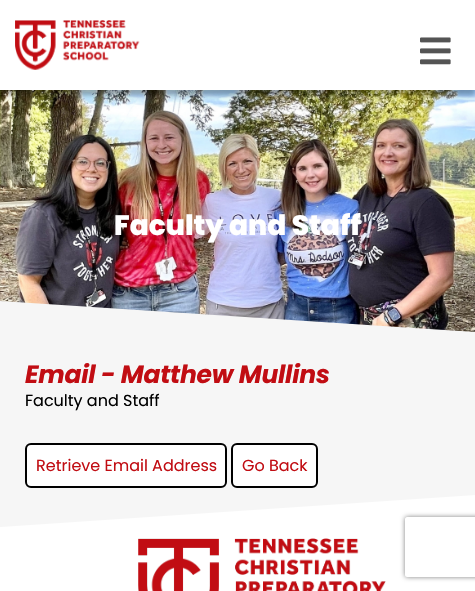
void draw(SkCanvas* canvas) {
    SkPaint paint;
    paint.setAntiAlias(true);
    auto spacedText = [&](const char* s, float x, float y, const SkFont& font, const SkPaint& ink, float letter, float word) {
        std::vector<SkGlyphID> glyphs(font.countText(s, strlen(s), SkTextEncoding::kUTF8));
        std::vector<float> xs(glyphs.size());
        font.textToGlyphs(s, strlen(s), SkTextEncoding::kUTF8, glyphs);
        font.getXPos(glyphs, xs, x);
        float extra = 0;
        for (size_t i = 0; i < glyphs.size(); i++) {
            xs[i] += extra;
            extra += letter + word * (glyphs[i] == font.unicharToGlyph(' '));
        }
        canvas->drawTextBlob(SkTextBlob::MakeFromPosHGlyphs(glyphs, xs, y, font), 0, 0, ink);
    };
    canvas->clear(0xFFF6F6F6);
    canvas->drawImageRect(SkImages::DeferredFromEncodedData(SkData::MakeFromFileName("img3.png")), SkRect::MakeXYWH(0, 90, 475, 242), SkSamplingOptions());
    paint.setColor(0x4D000000);
    paint.setMaskFilter(SkMaskFilter::MakeBlur(kNormal_SkBlurStyle, 2.5f));
    canvas->drawRect(SkRect::MakeXYWH(0, 5, 475, 90), paint);
    paint.setMaskFilter(nullptr);
    paint.setColor(0xFFFFFFFF);
    canvas->drawRect(SkRect::MakeXYWH(0, 0, 475, 90), paint);
    canvas->drawImageRect(SkImages::DeferredFromEncodedData(SkData::MakeFromFileName("img1.png")), SkRect::MakeXYWH(15, 20, 125, 50), SkSamplingOptions());
    canvas->drawImageRect(SkImages::DeferredFromEncodedData(SkData::MakeFromFileName("img2.png")), SkRect::MakeXYWH(420, 37, 31, 28), SkSamplingOptions());
    SkFont font1(fontMgr->matchFamilyStyle("Poppins", SkFontStyle(800, SkFontStyle::kNormal_Width, SkFontStyle::kUpright_Slant)), 28);
    font1.setSubpixel(true);
    canvas->drawString("Faculty and Staff", 114, 235, font1, paint);
    paint.setColor(0xFFF6F6F6);
    canvas->drawPath(SkPathBuilder(SkPathFillType::kEvenOdd).moveTo(475, 340).lineTo(0, 340).lineTo(0, 301).lineTo(475, 332).close().detach(), paint);
    SkFont font2(fontMgr->matchFamilyStyle("Poppins", SkFontStyle::BoldItalic()), 25);
    font2.setSubpixel(true);
    paint.setColor(0xFFC10D13);
    spacedText("Email - Matthew Mullins", 25, 383, font2, paint, -0.25f, 0);
    SkFont font3(fontMgr->matchFamilyStyle("Poppins", SkFontStyle::Normal()), 16);
    font3.setSubpixel(true);
    paint.setColor(0xFF000000);
    canvas->drawString("Faculty and Staff", 25, 406, font3, paint);
    paint.setColor(0xFFFFFFFF);
    canvas->drawRoundRect(SkRect::MakeXYWH(26, 444, 200, 43), 5, 5, paint);
    paint.setStyle(SkPaint::kStroke_Style);
    paint.setStrokeWidth(2);
    paint.setColor(0xFF000000);
    canvas->drawRoundRect(SkRect::MakeXYWH(26, 444, 200, 43), 5, 5, paint);
    paint.setStyle(SkPaint::kFill_Style);
    paint.setColor(0xFFC10D13);
    canvas->drawString("Retrieve Email Address", 36, 471, font3, paint);
    paint.setColor(0xFFFFFFFF);
    canvas->drawRoundRect(SkRect::MakeXYWH(232, 444, 85, 43), 5, 5, paint);
    paint.setStyle(SkPaint::kStroke_Style);
    paint.setColor(0xFF000000);
    canvas->drawRoundRect(SkRect::MakeXYWH(232, 444, 85, 43), 5, 5, paint);
    paint.setStyle(SkPaint::kFill_Style);
    paint.setColor(0xFFC10D13);
    canvas->drawString("Go Back", 242, 471, font3, paint);
    paint.setColor(0xFFFFFFFF);
    canvas->drawRect(SkRect::MakeXYWH(0, 495, 475, 96), paint);
    canvas->save();
    canvas->clipPath(SkPathBuilder(SkPathFillType::kEvenOdd).moveTo(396, 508).lineTo(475, 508).lineTo(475, 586).lineTo(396, 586).close().moveTo(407, 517).lineTo(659, 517).cubicTo(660, 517, 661, 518, 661, 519).lineTo(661, 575).cubicTo(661, 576, 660, 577, 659, 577).lineTo(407, 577).cubicTo(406, 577, 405, 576, 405, 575).lineTo(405, 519).cubicTo(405, 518, 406, 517, 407, 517).close().detach(), true);
    paint.setColor(0xFF808080);
    paint.setMaskFilter(SkMaskFilter::MakeBlur(kNormal_SkBlurStyle, 2.5f));
    canvas->drawRoundRect(SkRect::MakeXYWH(405, 517, 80, 60), 2, 2, paint);
    paint.setMaskFilter(nullptr);
    canvas->restore();
    paint.setColor(0xFFF6F6F6);
    canvas->drawPath(SkPathBuilder(SkPathFillType::kEvenOdd).moveTo(475, 488).lineTo(0, 488).lineTo(0, 527).lineTo(475, 495).close().detach(), paint);
    canvas->drawImageRect(SkImages::DeferredFromEncodedData(SkData::MakeFromFileName("img4.png")), SkRect::MakeXYWH(138, 538, 248, 53), SkSamplingOptions());
}
